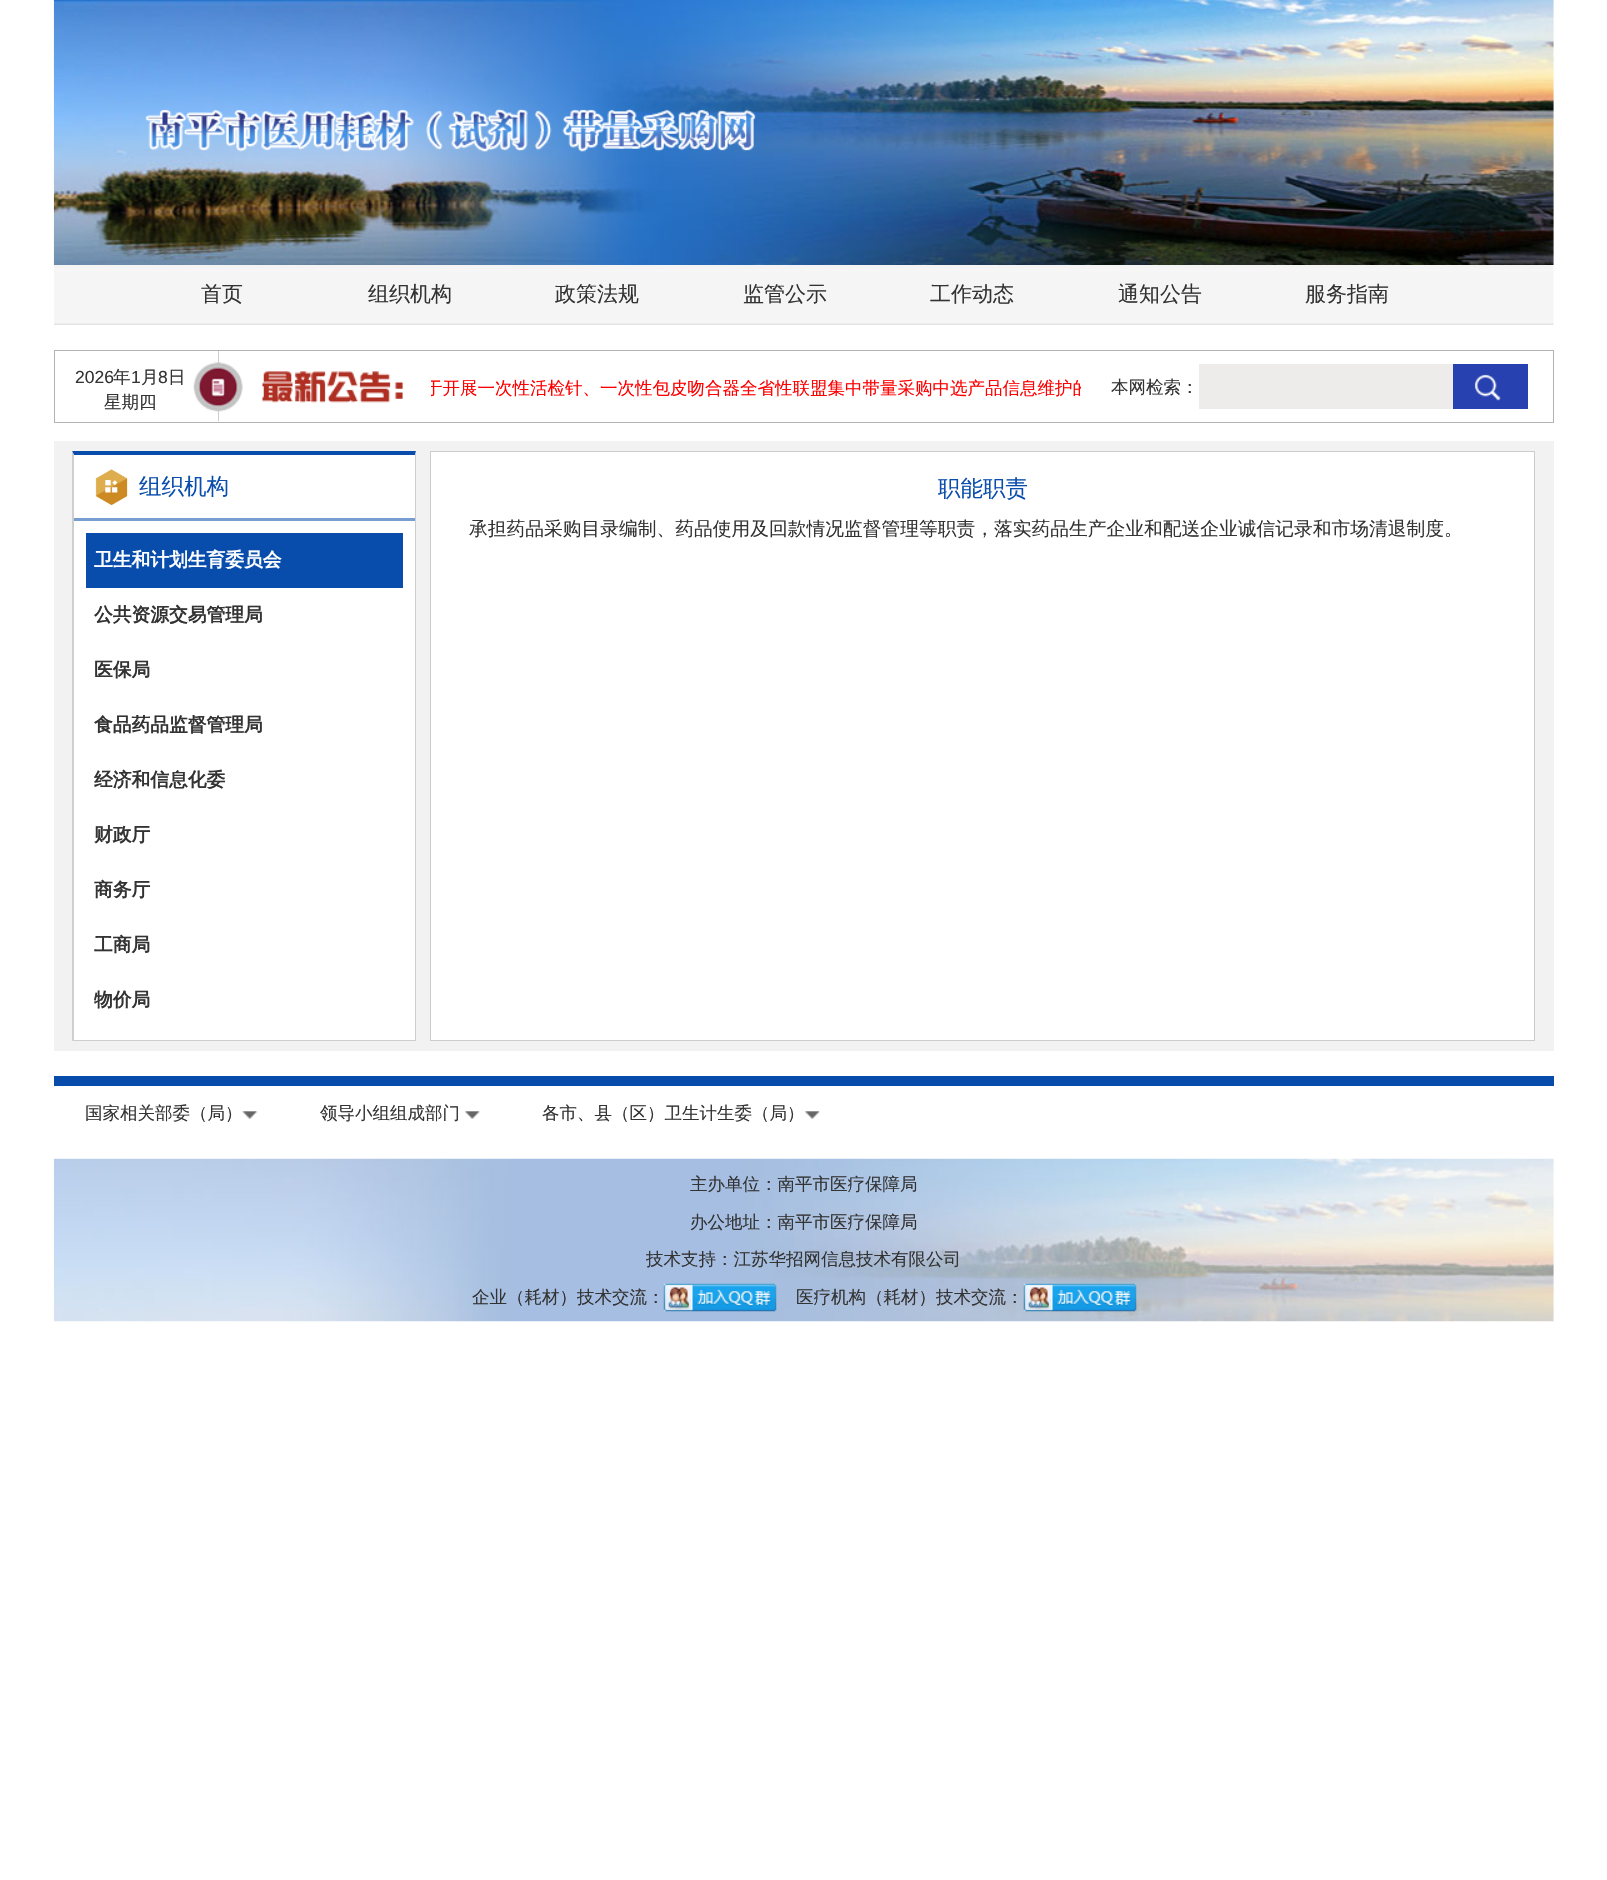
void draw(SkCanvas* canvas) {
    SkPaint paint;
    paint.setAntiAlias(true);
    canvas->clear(0xFFFFFFFF);
    canvas->drawImageRect(SkImages::DeferredFromEncodedData(SkData::MakeFromFileName("img1.png")), SkRect::MakeXYWH(53, 0, 1501, 265), SkSamplingOptions());
    canvas->drawImageRect(SkImages::DeferredFromEncodedData(SkData::MakeFromFileName("img2.png")), SkRect::MakeXYWH(145, 108, 611, 44), SkSamplingOptions());
    canvas->drawImageRect(SkImages::DeferredFromEncodedData(SkData::MakeFromFileName("img3.png")), SkRect::MakeXYWH(54, 265, 1500, 60), SkSamplingOptions());
    SkFont font1(fontMgr->matchFamilyStyle("WenQuanYi Zen Hei", SkFontStyle(500, SkFontStyle::kNormal_Width, SkFontStyle::kUpright_Slant)), 21);
    font1.setSubpixel(true);
    paint.setColor(0xFF333333);
    canvas->drawString("首页", 201, 301, font1, paint);
    canvas->drawString("组织机构", 368, 301, font1, paint);
    canvas->drawString("政策法规", 555, 301, font1, paint);
    canvas->drawString("监管公示", 743, 301, font1, paint);
    canvas->drawString("工作动态", 930, 301, font1, paint);
    canvas->drawString("通知公告", 1118, 301, font1, paint);
    canvas->drawString("服务指南", 1305, 301, font1, paint);
    paint.setStyle(SkPaint::kStroke_Style);
    paint.setStrokeWidth(1);
    paint.setColor(0xFFB3B1B2);
    canvas->drawRect(SkRect::MakeXYWH(54.5f, 350.5f, 1499, 72), paint);
    paint.setStyle(SkPaint::kFill_Style);
    paint.setColor(0xFFCDCDCD);
    canvas->drawRect(SkRect::MakeXYWH(218, 351, 1, 70), paint);
    SkFont font2(fontMgr->matchFamilyStyle("Liberation Sans", SkFontStyle::Normal()), 17.5f);
    font2.setSubpixel(true);
    paint.setColor(0xFF333333);
    canvas->drawString("2026", 75, 383, font2, paint);
    SkFont font3(fontMgr->matchFamilyStyle("WenQuanYi Zen Hei", SkFontStyle(500, SkFontStyle::kNormal_Width, SkFontStyle::kUpright_Slant)), 17.5f);
    font3.setSubpixel(true);
    canvas->drawString("年", 113, 383, font3, paint);
    canvas->drawString("1", 131, 383, font2, paint);
    canvas->drawString("月", 141, 383, font3, paint);
    canvas->drawString("8", 158, 383, font2, paint);
    canvas->drawString("日", 168, 383, font3, paint);
    canvas->drawString("星期四", 104, 408, font3, paint);
    canvas->drawImageRect(SkImages::DeferredFromEncodedData(SkData::MakeFromFileName("img4.png")), SkRect::MakeXYWH(193, 362, 210, 50), SkSamplingOptions());
    canvas->save();
    canvas->clipRect(SkRect::MakeXYWH(431, 351, 650, 70));
    paint.setColor(0xFFFF0000);
    canvas->drawString("于开展一次性活检针、一次性包皮吻合器全省性联盟集中带量采购中选产品信息维护的", 425, 394, font3, paint);
    canvas->restore();
    paint.setColor(0xFF333333);
    canvas->drawString("本网检索：", 1111, 393, font3, paint);
    paint.setColor(0xFFEDECEA);
    canvas->drawRect(SkRect::MakeXYWH(1199, 364, 254, 45), paint);
    paint.setColor(0xFF2741B0);
    canvas->drawRect(SkRect::MakeXYWH(1453, 364, 75, 45), paint);
    canvas->drawImageRect(SkImages::DeferredFromEncodedData(SkData::MakeFromFileName("img5.png")), SkRect::MakeXYWH(1474, 374, 27, 27), SkSamplingOptions());
    paint.setColor(0xFFF2F2F2);
    canvas->drawRect(SkRect::MakeXYWH(54, 441, 1500, 610), paint);
    paint.setColor(0xFFFFFFFF);
    canvas->drawRect(SkRect::MakeXYWH(74, 455, 341, 585), paint);
    paint.setColor(0xFF084DAC);
    canvas->drawPath(SkPathBuilder().moveTo(72, 451).lineTo(416, 451).lineTo(415, 455).lineTo(74, 455).close().detach(), paint);
    paint.setColor(0xFFCECECE);
    canvas->drawPath(SkPathBuilder().moveTo(416, 451).lineTo(416, 1041).lineTo(415, 1040).lineTo(415, 455).close().detach(), paint);
    canvas->drawRect(SkRect::MakeXYWH(73, 1040, 343, 1), paint);
    canvas->drawPath(SkPathBuilder().moveTo(72, 1041).lineTo(72, 451).lineTo(74, 455).lineTo(74, 1040).close().detach(), paint);
    paint.setColor(0xFF789ED1);
    canvas->drawRect(SkRect::MakeXYWH(74, 518, 341, 3), paint);
    canvas->drawImageRect(SkImages::DeferredFromEncodedData(SkData::MakeFromFileName("img6.png")), SkRect::MakeXYWH(95, 469, 33, 37), SkSamplingOptions());
    SkFont font4(fontMgr->matchFamilyStyle("WenQuanYi Zen Hei", SkFontStyle(500, SkFontStyle::kNormal_Width, SkFontStyle::kUpright_Slant)), 22.5f);
    font4.setSubpixel(true);
    paint.setColor(0xFF094DAD);
    canvas->drawString("组织机构", 139, 494, font4, paint);
    paint.setColor(0xFF084DAC);
    canvas->drawRect(SkRect::MakeXYWH(86, 533, 317, 55), paint);
    SkFont font5(fontMgr->matchFamilyStyle("WenQuanYi Zen Hei", SkFontStyle::Bold()), 18.75f);
    font5.setSubpixel(true);
    paint.setColor(0xFFFFFFFF);
    canvas->drawString("卫生和计划生育委员会", 94, 566, font5, paint);
    paint.setColor(0xFF333333);
    canvas->drawString("公共资源交易管理局", 94, 621, font5, paint);
    canvas->drawString("医保局", 94, 676, font5, paint);
    canvas->drawString("食品药品监督管理局", 94, 731, font5, paint);
    canvas->drawString("经济和信息化委", 94, 786, font5, paint);
    canvas->drawString("财政厅", 94, 841, font5, paint);
    canvas->drawString("商务厅", 94, 896, font5, paint);
    canvas->drawString("工商局", 94, 951, font5, paint);
    canvas->drawString("物价局", 94, 1006, font5, paint);
    paint.setColor(0xFFFFFFFF);
    canvas->drawRect(SkRect::MakeXYWH(430.5f, 451.5f, 1104, 589), paint);
    paint.setStyle(SkPaint::kStroke_Style);
    paint.setColor(0xFFCCCCCC);
    canvas->drawRect(SkRect::MakeXYWH(430.5f, 451.5f, 1104, 589), paint);
    paint.setStyle(SkPaint::kFill_Style);
    paint.setColor(0xFF094DAD);
    canvas->drawString("职能职责", 938, 496, font4, paint);
    SkFont font6(fontMgr->matchFamilyStyle("WenQuanYi Zen Hei", SkFontStyle(500, SkFontStyle::kNormal_Width, SkFontStyle::kUpright_Slant)), 18.75f);
    font6.setSubpixel(true);
    paint.setColor(0xFF333333);
    canvas->drawString("承担药品采购目录编制、药品使用及回款情况监督管理等职责，落实药品生产企业和配送企业诚信记录和市场清退制度。", 469, 535, font6, paint);
    paint.setColor(0xFF074CAB);
    canvas->drawRect(SkRect::MakeXYWH(54, 1076, 1500, 10), paint);
    paint.setColor(0xFF333333);
    canvas->drawString("国家相关部委（局）", 85, 1119, font3, paint);
    canvas->drawImageRect(SkImages::DeferredFromEncodedData(SkData::MakeFromFileName("img7.png")), SkRect::MakeXYWH(242, 1111, 16, 8), SkSamplingOptions());
    canvas->drawString("领导小组组成部门", 320, 1119, font3, paint);
    canvas->drawImageRect(SkImages::DeferredFromEncodedData(SkData::MakeFromFileName("img8.png")), SkRect::MakeXYWH(465, 1111, 15, 8), SkSamplingOptions());
    canvas->drawString("各市、县（区）卫生计生委（局）", 542, 1119, font3, paint);
    canvas->drawImageRect(SkImages::DeferredFromEncodedData(SkData::MakeFromFileName("img8.png")), SkRect::MakeXYWH(805, 1111, 15, 8), SkSamplingOptions());
    canvas->drawImageRect(SkImages::DeferredFromEncodedData(SkData::MakeFromFileName("img9.png")), SkRect::MakeXYWH(53, 1158, 1501, 164), SkSamplingOptions());
    canvas->drawString("主办单位：南平市医疗保障局", 690, 1190, font3, paint);
    canvas->drawString("办公地址：南平市医疗保障局", 690, 1228, font3, paint);
    canvas->drawString("技术支持：江苏华招网信息技术有限公司", 646, 1265, font3, paint);
    canvas->drawString("企业（耗材）技术交流：", 472, 1303, font3, paint);
    canvas->drawImageRect(SkImages::DeferredFromEncodedData(SkData::MakeFromFileName("img10.png")), SkRect::MakeXYWH(663, 1283, 114, 29), SkSamplingOptions());
    canvas->drawString("医疗机构（耗材）技术交流：", 796, 1303, font3, paint);
    canvas->drawImageRect(SkImages::DeferredFromEncodedData(SkData::MakeFromFileName("img11.png")), SkRect::MakeXYWH(1023, 1283, 114, 29), SkSamplingOptions());
}
